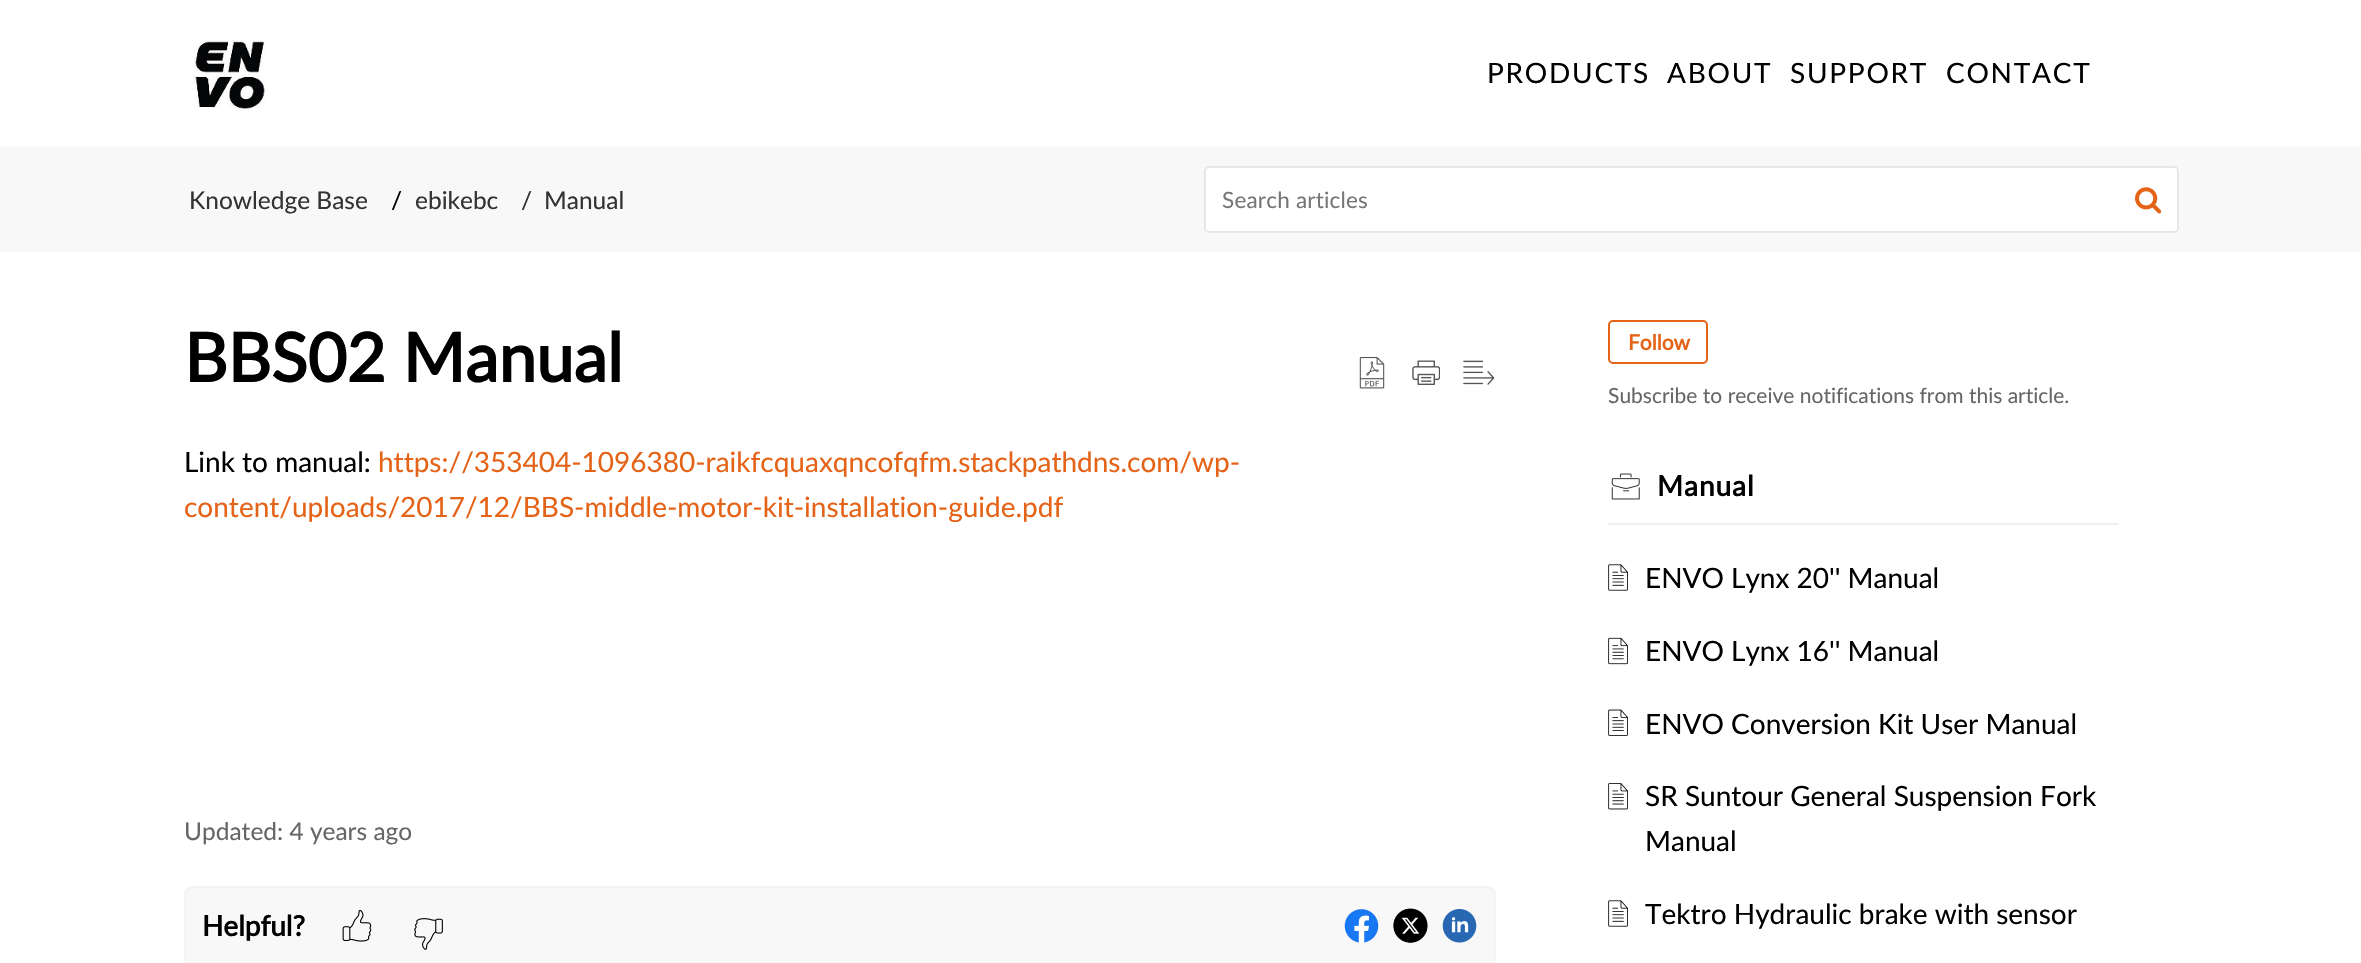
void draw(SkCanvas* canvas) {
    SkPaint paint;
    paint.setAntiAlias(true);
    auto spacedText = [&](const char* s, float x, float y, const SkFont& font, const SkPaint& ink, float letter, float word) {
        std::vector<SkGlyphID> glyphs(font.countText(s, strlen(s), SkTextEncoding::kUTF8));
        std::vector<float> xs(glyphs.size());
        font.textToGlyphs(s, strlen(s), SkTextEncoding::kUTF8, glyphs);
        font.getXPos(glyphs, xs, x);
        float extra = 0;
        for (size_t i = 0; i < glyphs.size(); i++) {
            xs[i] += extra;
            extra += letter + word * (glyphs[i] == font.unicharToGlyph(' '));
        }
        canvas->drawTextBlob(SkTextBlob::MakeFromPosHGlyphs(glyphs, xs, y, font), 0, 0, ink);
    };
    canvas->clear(0xFFFFFFFF);
    canvas->drawImageRect(SkImages::DeferredFromEncodedData(SkData::MakeFromFileName("img1.png")), SkRect::MakeXYWH(190, 39, 76, 72), SkSamplingOptions());
    SkFont font1(fontMgr->matchFamilyStyle("Lato", SkFontStyle::Normal()), 28);
    font1.setSubpixel(true);
    paint.setColor(0xFF000000);
    spacedText("PRODUCTS", 1487, 83, font1, paint, 1.75f, 0);
    spacedText("ABOUT", 1667, 83, font1, paint, 1.75f, 0);
    spacedText("SUPPORT", 1790, 83, font1, paint, 1.75f, 0);
    spacedText("CONTACT", 1946, 83, font1, paint, 1.75f, 0);
    paint.setColor(0xFFF8F8F8);
    canvas->drawRect(SkRect::MakeXYWH(0, 147, 2361, 105), paint);
    SkFont font2(fontMgr->matchFamilyStyle("Lato", SkFontStyle::Normal()), 24.5f);
    font2.setSubpixel(true);
    paint.setColor(0xFF333333);
    canvas->drawString("Knowledge Base", 189, 209, font2, paint);
    paint.setColor(0xFF000000);
    canvas->drawString("/", 391, 209, font2, paint);
    paint.setColor(0xFF333333);
    canvas->drawString("ebikebc", 415, 209, font2, paint);
    canvas->drawString("/", 521, 209, font2, paint);
    canvas->drawString("Manual", 544, 209, font2, paint);
    paint.setColor(0xFFFFFFFF);
    canvas->drawRoundRect(SkRect::MakeXYWH(1205, 167, 973, 65), 4, 4, paint);
    paint.setStyle(SkPaint::kStroke_Style);
    paint.setStrokeWidth(2);
    paint.setColor(0xFFE5E8EA);
    canvas->drawRoundRect(SkRect::MakeXYWH(1205, 167, 973, 65), 4, 4, paint);
    SkFont font3(fontMgr->matchFamilyStyle("Lato", SkFontStyle::Normal()), 22.5f);
    font3.setSubpixel(true);
    paint.setStyle(SkPaint::kFill_Style);
    paint.setColor(0xFF777777);
    spacedText("Search articles", 1222, 208, font3, paint, 0.2f, 0);
    canvas->drawImageRect(SkImages::DeferredFromEncodedData(SkData::MakeFromFileName("img2.png")), SkRect::MakeXYWH(2135, 187, 26, 27), SkSamplingOptions());
    SkFont font4(fontMgr->matchFamilyStyle("Lato", SkFontStyle::Bold()), 67.25f);
    font4.setSubpixel(true);
    paint.setColor(0xFF000000);
    canvas->drawString("BBS02 Manual", 184, 382, font4, paint);
    canvas->drawImageRect(SkImages::DeferredFromEncodedData(SkData::MakeFromFileName("img3.png")), SkRect::MakeXYWH(1359, 357, 26, 32), SkSamplingOptions());
    canvas->drawImageRect(SkImages::DeferredFromEncodedData(SkData::MakeFromFileName("img4.png")), SkRect::MakeXYWH(1412, 360, 28, 25), SkSamplingOptions());
    canvas->drawImageRect(SkImages::DeferredFromEncodedData(SkData::MakeFromFileName("img5.png")), SkRect::MakeXYWH(1463, 360, 32, 25), SkSamplingOptions());
    canvas->drawString("Link to manual:", 184, 472, font1, paint);
    paint.setColor(0xFFE46317);
    canvas->drawString("https://353404-1096380-raikfcquaxqncofqfm.stackpathdns.com/wp-", 378, 472, font1, paint);
    canvas->drawString("content/uploads/2017/12/BBS-middle-motor-kit-installation-guide.pdf", 184, 517, font1, paint);
    paint.setColor(0xFF666666);
    canvas->drawString("Updated: 4 years ago", 184, 840, font2, paint);
    paint.setColor(0xFFF8F8F8);
    canvas->drawRoundRect(SkRect::MakeXYWH(185, 887, 1310, 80), 8, 8, paint);
    paint.setStyle(SkPaint::kStroke_Style);
    paint.setColor(0xFFF3F3F3);
    canvas->drawRoundRect(SkRect::MakeXYWH(185, 887, 1310, 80), 8, 8, paint);
    SkFont font5(fontMgr->matchFamilyStyle("Lato", SkFontStyle::Bold()), 28);
    font5.setSubpixel(true);
    paint.setStyle(SkPaint::kFill_Style);
    paint.setColor(0xFF000000);
    canvas->drawString("Helpful?", 202, 936, font5, paint);
    canvas->drawImageRect(SkImages::DeferredFromEncodedData(SkData::MakeFromFileName("img6.png")), SkRect::MakeXYWH(342, 909, 30, 33), SkSamplingOptions());
    canvas->drawImageRect(SkImages::DeferredFromEncodedData(SkData::MakeFromFileName("img7.png")), SkRect::MakeXYWH(414, 918, 29, 32), SkSamplingOptions());
    canvas->drawImageRect(SkImages::DeferredFromEncodedData(SkData::MakeFromFileName("img8.png")), SkRect::MakeXYWH(1344, 909, 35, 34), SkSamplingOptions());
    canvas->drawImageRect(SkImages::DeferredFromEncodedData(SkData::MakeFromFileName("img9.png")), SkRect::MakeXYWH(1393, 908, 35, 35), SkSamplingOptions());
    canvas->drawImageRect(SkImages::DeferredFromEncodedData(SkData::MakeFromFileName("img10.png")), SkRect::MakeXYWH(1442, 909, 35, 34), SkSamplingOptions());
    paint.setStyle(SkPaint::kStroke_Style);
    paint.setColor(0xFFE46317);
    canvas->drawRoundRect(SkRect::MakeXYWH(1609, 321, 98, 42), 4, 4, paint);
    SkFont font6(fontMgr->matchFamilyStyle("Lato", SkFontStyle::Bold()), 21);
    font6.setSubpixel(true);
    paint.setStyle(SkPaint::kFill_Style);
    canvas->drawString("Follow", 1628, 350, font6, paint);
    SkFont font7(fontMgr->matchFamilyStyle("Lato", SkFontStyle::Normal()), 21);
    font7.setSubpixel(true);
    paint.setColor(0xFF666666);
    canvas->drawString("Subscribe to receive notifications from this article.", 1608, 403, font7, paint);
    paint.setColor(0xFFEFEFEF);
    canvas->drawRect(SkRect::MakeXYWH(1608, 523, 511, 2), paint);
    canvas->drawImageRect(SkImages::DeferredFromEncodedData(SkData::MakeFromFileName("img11.png")), SkRect::MakeXYWH(1611, 473, 29, 27), SkSamplingOptions());
    paint.setColor(0xFF000000);
    spacedText("Manual", 1657, 496, font5, paint, 1, 0);
    canvas->drawImageRect(SkImages::DeferredFromEncodedData(SkData::MakeFromFileName("img12.png")), SkRect::MakeXYWH(1608, 564, 20, 27), SkSamplingOptions());
    canvas->drawString("ENVO Lynx 20'' Manual", 1645, 588, font1, paint);
    canvas->drawImageRect(SkImages::DeferredFromEncodedData(SkData::MakeFromFileName("img13.png")), SkRect::MakeXYWH(1608, 637, 20, 28), SkSamplingOptions());
    canvas->drawString("ENVO Lynx 16'' Manual", 1645, 661, font1, paint);
    canvas->drawImageRect(SkImages::DeferredFromEncodedData(SkData::MakeFromFileName("img14.png")), SkRect::MakeXYWH(1608, 709, 20, 27), SkSamplingOptions());
    canvas->drawString("ENVO Conversion Kit User Manual", 1645, 734, font1, paint);
    canvas->drawImageRect(SkImages::DeferredFromEncodedData(SkData::MakeFromFileName("img15.png")), SkRect::MakeXYWH(1608, 783, 20, 27), SkSamplingOptions());
    canvas->drawString("SR Suntour General Suspension Fork", 1645, 806, font1, paint);
    canvas->drawString("Manual", 1645, 851, font1, paint);
    canvas->drawImageRect(SkImages::DeferredFromEncodedData(SkData::MakeFromFileName("img12.png")), SkRect::MakeXYWH(1608, 900, 20, 27), SkSamplingOptions());
    canvas->drawString("Tektro Hydraulic brake with sensor", 1645, 924, font1, paint);
}
